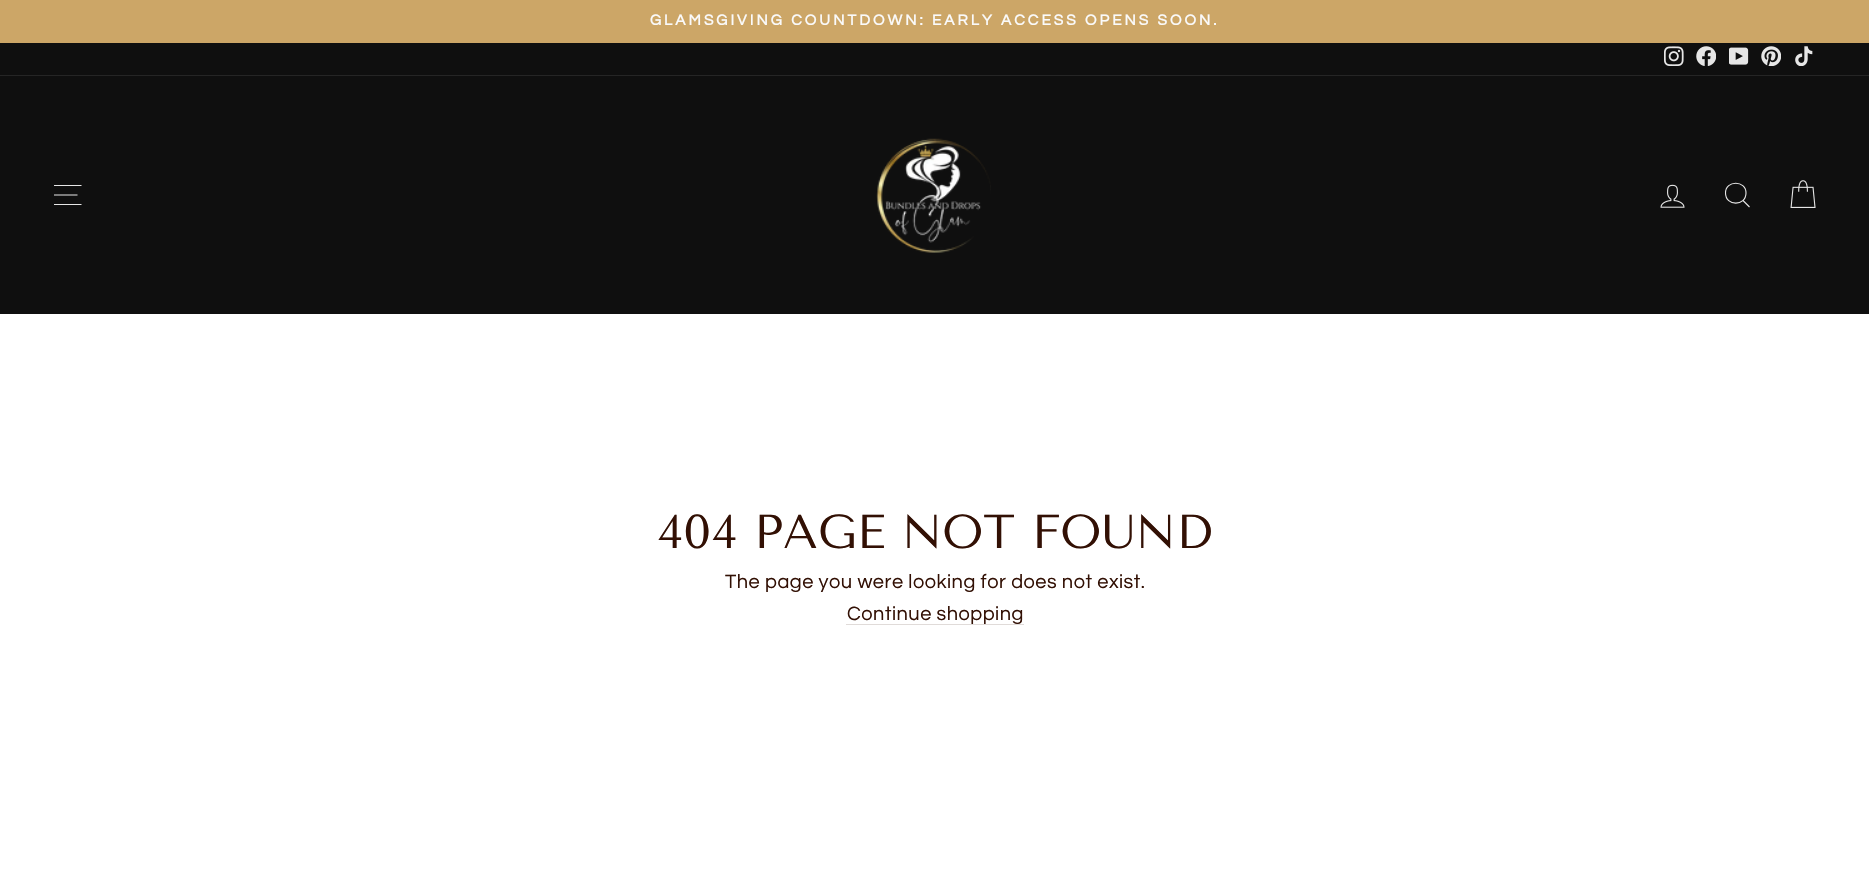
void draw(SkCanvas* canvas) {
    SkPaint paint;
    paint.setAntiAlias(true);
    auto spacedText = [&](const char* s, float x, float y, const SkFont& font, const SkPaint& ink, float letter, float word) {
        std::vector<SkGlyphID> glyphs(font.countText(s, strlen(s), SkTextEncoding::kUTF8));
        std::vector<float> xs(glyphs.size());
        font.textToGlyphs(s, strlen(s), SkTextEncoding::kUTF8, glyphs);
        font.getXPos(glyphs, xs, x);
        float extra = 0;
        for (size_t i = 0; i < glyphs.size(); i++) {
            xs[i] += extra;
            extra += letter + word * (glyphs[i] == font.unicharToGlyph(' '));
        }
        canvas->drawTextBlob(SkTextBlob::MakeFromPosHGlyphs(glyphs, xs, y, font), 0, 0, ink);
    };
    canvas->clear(0xFFFFFFFF);
    paint.setColor(0xFFCCA667);
    canvas->drawRect(SkRect::MakeXYWH(0, 0, 1869, 43), paint);
    SkFont font1(fontMgr->matchFamilyStyle("Questrial", SkFontStyle::Bold()), 15.3f);
    font1.setSubpixel(true);
    paint.setColor(0xFFFAFAFA);
    spacedText("GLAMSGIVING COUNTDOWN: EARLY ACCESS OPENS SOON.", 650, 25, font1, paint, 3.05f, 0);
    paint.setColor(0xFF0F0F0F);
    canvas->drawRect(SkRect::MakeXYWH(0, 43, 1869, 32), paint);
    canvas->drawImageRect(SkImages::DeferredFromEncodedData(SkData::MakeFromFileName("img1.png")), SkRect::MakeXYWH(1664, 46, 20, 20), SkSamplingOptions());
    canvas->drawImageRect(SkImages::DeferredFromEncodedData(SkData::MakeFromFileName("img2.png")), SkRect::MakeXYWH(1696, 46, 20, 20), SkSamplingOptions());
    canvas->drawImageRect(SkImages::DeferredFromEncodedData(SkData::MakeFromFileName("img3.png")), SkRect::MakeXYWH(1729, 47, 20, 18), SkSamplingOptions());
    canvas->drawImageRect(SkImages::DeferredFromEncodedData(SkData::MakeFromFileName("img4.png")), SkRect::MakeXYWH(1761, 46, 20, 20), SkSamplingOptions());
    canvas->drawImageRect(SkImages::DeferredFromEncodedData(SkData::MakeFromFileName("img5.png")), SkRect::MakeXYWH(1795, 46, 18, 20), SkSamplingOptions());
    canvas->drawRect(SkRect::MakeXYWH(0, 76, 1869, 238), paint);
    paint.setColor(0xFF252525);
    canvas->drawRect(SkRect::MakeXYWH(0, 75, 1869, 1), paint);
    paint.setStyle(SkPaint::kStroke_Style);
    paint.setStrokeWidth(1.1f);
    paint.setColor(0xFFE6E6E6);
    canvas->drawPath(SkPathBuilder().moveTo(54, 185.5f).lineTo(81.5f, 185.5f).moveTo(54, 195).lineTo(77.5f, 195).moveTo(54, 204.5f).lineTo(81.5f, 204.5f).detach(), paint);
    canvas->drawImageRect(SkImages::DeferredFromEncodedData(SkData::MakeFromFileName("img6.png")), SkRect::MakeXYWH(876, 138, 115, 115), SkSamplingOptions());
    canvas->drawImageRect(SkImages::DeferredFromEncodedData(SkData::MakeFromFileName("img7.png")), SkRect::MakeXYWH(1660, 184, 25, 24), SkSamplingOptions());
    canvas->drawPath(SkPathBuilder().moveTo(1746, 193).cubicTo(1746, 206.5f, 1725.5f, 206.5f, 1725.5f, 193).cubicTo(1725.5f, 180, 1746, 180, 1746, 193).close().moveTo(1749.5f, 207).lineTo(1743, 200.5f).detach(), paint);
    canvas->drawImageRect(SkImages::DeferredFromEncodedData(SkData::MakeFromFileName("img8.png")), SkRect::MakeXYWH(1790, 180, 26, 28), SkSamplingOptions());
    SkFont font2(fontMgr->matchFamilyStyle("Tenor Sans", SkFontStyle::Normal()), 47.5f);
    font2.setSubpixel(true);
    paint.setStyle(SkPaint::kFill_Style);
    paint.setColor(0xFF321004);
    canvas->drawString("404 PAGE NOT FOUND", 657, 548, font2, paint);
    SkFont font3(fontMgr->matchFamilyStyle("Questrial", SkFontStyle::Normal()), 20);
    font3.setSubpixel(true);
    spacedText("The page you were looking for does not exist.", 725, 588, font3, paint, 0.5f, 0);
    paint.setColor(0xFFE0DBD9);
    canvas->drawRect(SkRect::MakeXYWH(846, 624, 178, 1), paint);
    paint.setColor(0xFF321004);
    spacedText("Continue shopping", 847, 620, font3, paint, 0.5f, 0);
}
